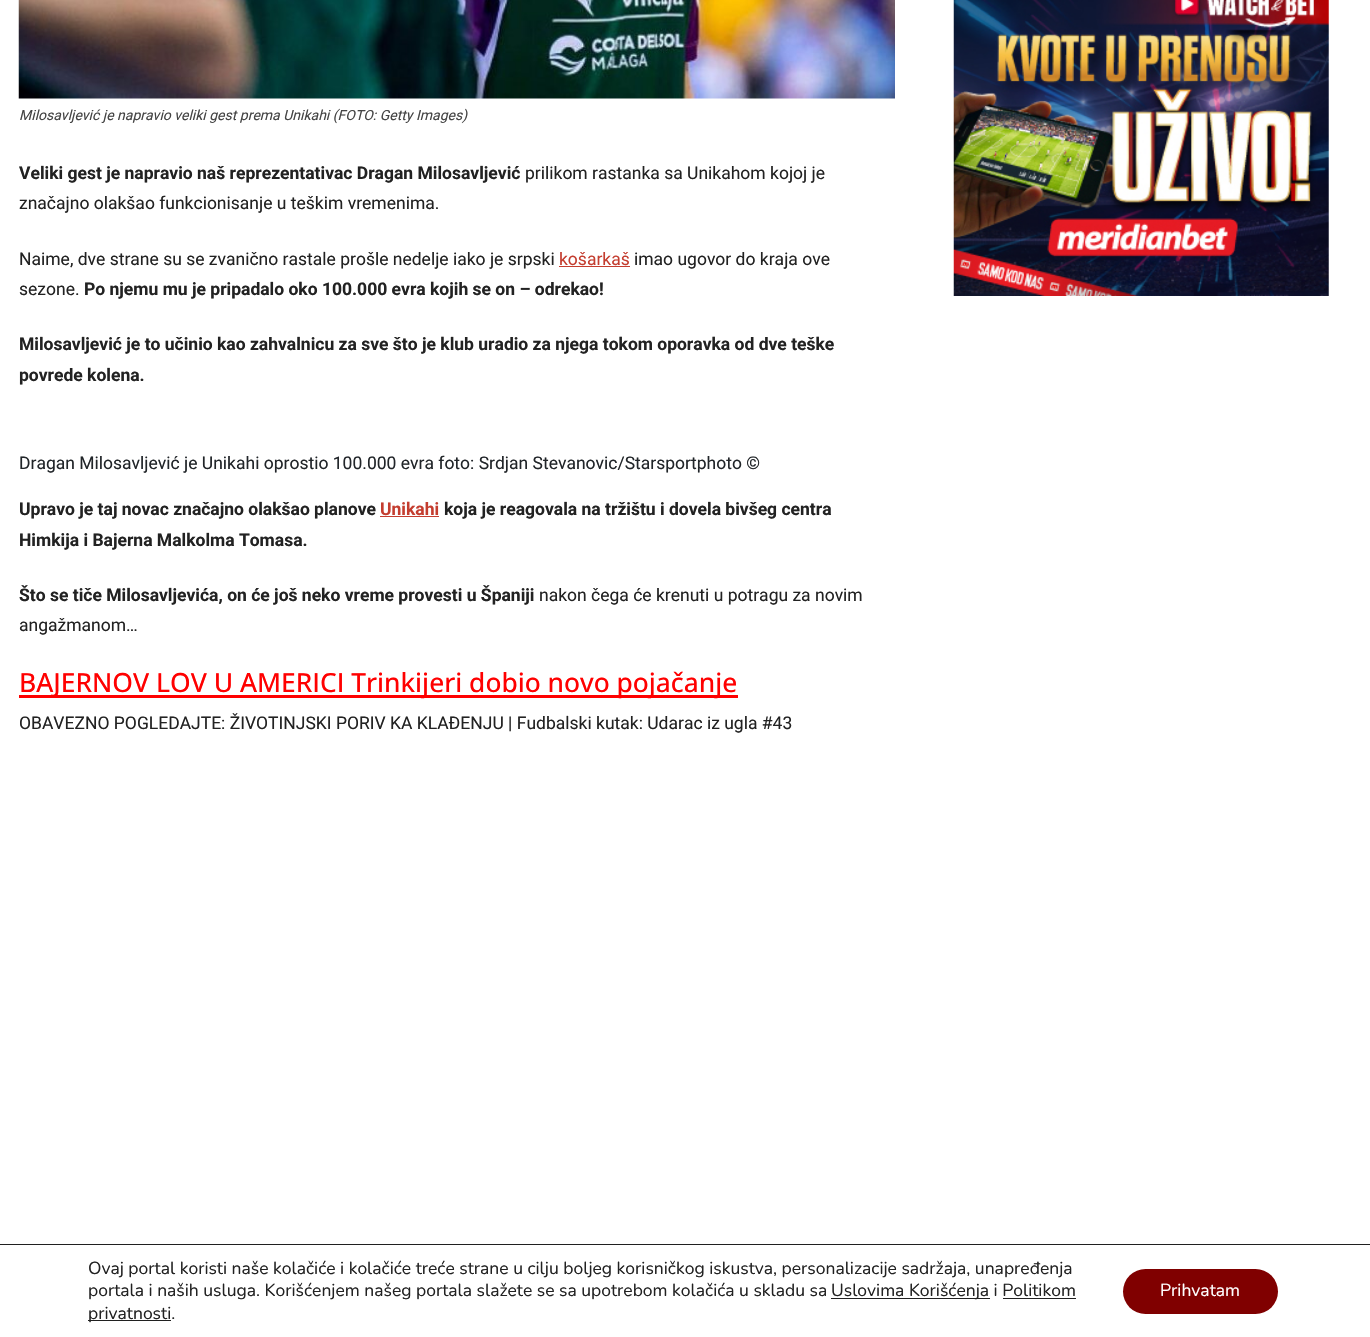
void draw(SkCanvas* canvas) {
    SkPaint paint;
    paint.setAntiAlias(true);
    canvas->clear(0xFFFFFFFF);
    canvas->drawImageRect(SkImages::DeferredFromEncodedData(SkData::MakeFromFileName("img1.png")), SkRect::MakeXYWH(18, 0, 877, 99), SkSamplingOptions());
    SkFont font1(fontMgr->matchFamilyStyle("Roboto", SkFontStyle::Italic()), 14);
    font1.setSubpixel(true);
    paint.setColor(0xFF444444);
    canvas->drawString("Milosavljević je napravio veliki gest prema Unikahi (FOTO: Getty Images)", 19, 120, font1, paint);
    SkFont font2(fontMgr->matchFamilyStyle("Roboto", SkFontStyle::Bold()), 17.5f);
    font2.setSubpixel(true);
    paint.setColor(0xFF222222);
    canvas->drawString("Veliki gest je napravio naš reprezentativac Dragan Milosavljević", 19, 179, font2, paint);
    SkFont font3(fontMgr->matchFamilyStyle("Roboto", SkFontStyle::Normal()), 17.5f);
    font3.setSubpixel(true);
    canvas->drawString("prilikom rastanka sa Unikahom kojoj je", 525, 179, font3, paint);
    canvas->drawString("značajno olakšao funkcionisanje u teškim vremenima.", 19, 209, font3, paint);
    canvas->drawString("Naime, dve strane su se zvanično rastale prošle nedelje iako je srpski", 19, 265, font3, paint);
    paint.setColor(0xFFC43D2F);
    canvas->drawString("košarkaš", 559, 265, font3, paint);
    canvas->drawRect(SkRect::MakeXYWH(559, 266, 71, 1), paint);
    paint.setColor(0xFF222222);
    canvas->drawString("imao ugovor do kraja ove", 634, 265, font3, paint);
    canvas->drawString("sezone.", 19, 295, font3, paint);
    canvas->drawString("Po njemu mu je pripadalo oko 100.000 evra kojih se on – odrekao!", 84, 295, font2, paint);
    canvas->drawString("Milosavljević je to učinio kao zahvalnicu za sve što je klub uradio za njega tokom oporavka od dve teške", 19, 350, font2, paint);
    canvas->drawString("povrede kolena.", 19, 381, font2, paint);
    paint.setColor(0xFF212529);
    canvas->drawString("Dragan Milosavljević je Unikahi oprostio 100.000 evra foto: Srdjan Stevanovic/Starsportphoto ©", 19, 469, font3, paint);
    paint.setColor(0xFF222222);
    canvas->drawString("Upravo je taj novac značajno olakšao planove", 19, 515, font2, paint);
    paint.setColor(0xFFC43D2F);
    canvas->drawString("Unikahi", 380, 515, font2, paint);
    canvas->drawRect(SkRect::MakeXYWH(380, 516, 59, 1), paint);
    paint.setColor(0xFF222222);
    canvas->drawString("koja je reagovala na tržištu i dovela bivšeg centra", 444, 515, font2, paint);
    canvas->drawString("Himkija i Bajerna Malkolma Tomasa.", 19, 546, font2, paint);
    canvas->drawString("Što se tiče Milosavljevića, on će još neko vreme provesti u Španiji", 19, 601, font2, paint);
    canvas->drawString("nakon čega će krenuti u potragu za novim", 539, 601, font3, paint);
    canvas->drawString("angažmanom…", 19, 631, font3, paint);
    paint.setColor(0xFFFF0000);
    canvas->drawRect(SkRect::MakeXYWH(19, 695, 719, 3), paint);
    SkFont font4(fontMgr->matchFamilyStyle("Open Sans", SkFontStyle(500, SkFontStyle::kNormal_Width, SkFontStyle::kUpright_Slant)), 26.4f);
    font4.setSubpixel(true);
    canvas->drawString("BAJERNOV LOV U AMERICI Trinkijeri dobio novo pojačanje", 19, 692, font4, paint);
    paint.setColor(0xFF222222);
    canvas->drawString("OBAVEZNO POGLEDAJTE: ŽIVOTINJSKI PORIV KA KLAĐENJU | Fudbalski kutak: Udarac iz ugla #43", 19, 729, font3, paint);
    canvas->drawImageRect(SkImages::DeferredFromEncodedData(SkData::MakeFromFileName("img2.png")), SkRect::MakeXYWH(953, 0, 376, 296), SkSamplingOptions());
    paint.setColor(0xFF202020);
    canvas->drawRect(SkRect::MakeXYWH(0, 1244, 1370, 1), paint);
    SkFont font5(fontMgr->matchFamilyStyle("Nunito", SkFontStyle::Normal()), 17.5f);
    font5.setSubpixel(true);
    paint.setColor(0xFF222222);
    canvas->drawString("Ovaj portal koristi naše kolačiće i kolačiće treće strane u cilju boljeg korisničkog iskustva, personalizacije sadržaja, unapređenja", 88, 1274, font5, paint);
    canvas->drawString("portala i naših usluga. Korišćenjem našeg portala slažete se sa upotrebom kolačića u skladu sa", 88, 1296, font5, paint);
    paint.setColor(0xFF202020);
    canvas->drawRect(SkRect::MakeXYWH(831, 1298, 159, 1), paint);
    paint.setColor(0xFF222222);
    canvas->drawString("Uslovima Korišćenja i Politikom", 831, 1296, font5, paint);
    paint.setColor(0xFF202020);
    canvas->drawRect(SkRect::MakeXYWH(88, 1320, 83, 1), paint);
    paint.setColor(0xFF222222);
    canvas->drawString("privatnosti.", 88, 1319, font5, paint);
    paint.setColor(0xFF202020);
    canvas->drawRect(SkRect::MakeXYWH(1003, 1298, 73, 1), paint);
    paint.setColor(0xFF800000);
    canvas->drawRoundRect(SkRect::MakeXYWH(1123, 1269, 155, 45), 22.5f, 22.5f, paint);
    paint.setColor(0xFFFFFFFF);
    canvas->drawString("Prihvatam", 1160, 1296, font5, paint);
}
